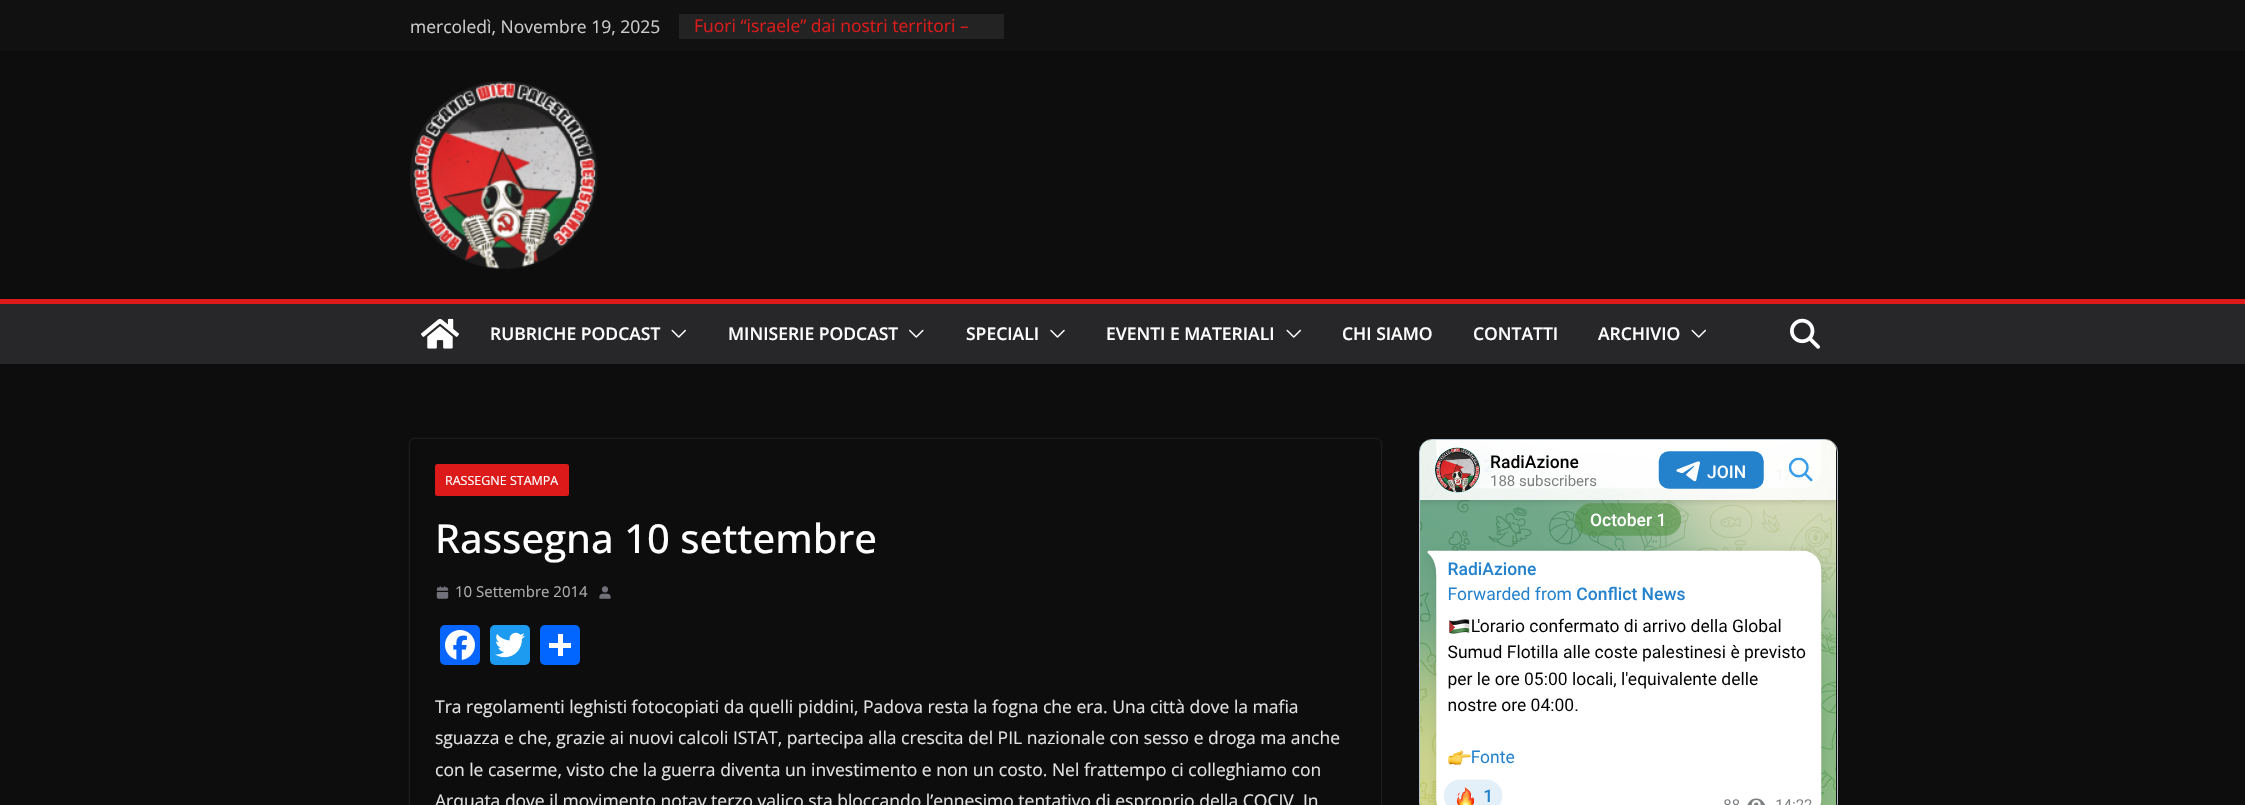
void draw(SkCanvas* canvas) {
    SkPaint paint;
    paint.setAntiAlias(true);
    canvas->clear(0xFF0D0D0D);
    paint.setColor(0xFF111111);
    canvas->drawRect(SkRect::MakeXYWH(0, 0, 2245, 51), paint);
    SkFont font1(fontMgr->matchFamilyStyle("Open Sans", SkFontStyle::Normal()), 17.5f);
    font1.setSubpixel(true);
    paint.setColor(0xFFCCCCCC);
    canvas->drawString("mercoledì, Novembre 19, 2025", 410, 33, font1, paint);
    paint.setColor(0xFF232323);
    canvas->drawRect(SkRect::MakeXYWH(679, 14, 325, 25), paint);
    paint.setColor(0xFFDD1A1A);
    canvas->drawString("Fuori “israele” dai nostri territori –", 694, 32, font1, paint);
    canvas->drawImageRect(SkImages::DeferredFromEncodedData(SkData::MakeFromFileName("img1.png")), SkRect::MakeXYWH(410, 81, 188, 188), SkSamplingOptions());
    paint.setColor(0xFF27272A);
    canvas->drawRect(SkRect::MakeXYWH(0, 304, 2245, 60), paint);
    paint.setColor(0xFFDD1A1A);
    canvas->drawRect(SkRect::MakeXYWH(0, 299, 2245, 5), paint);
    canvas->drawImageRect(SkImages::DeferredFromEncodedData(SkData::MakeFromFileName("img2.png")), SkRect::MakeXYWH(421, 318, 38, 31), SkSamplingOptions());
    SkFont font2(fontMgr->matchFamilyStyle("Open Sans", SkFontStyle(600, SkFontStyle::kNormal_Width, SkFontStyle::kUpright_Slant)), 17.5f);
    font2.setSubpixel(true);
    paint.setColor(0xFFFFFFFF);
    canvas->drawString("RUBRICHE PODCAST", 490, 340, font2, paint);
    canvas->drawImageRect(SkImages::DeferredFromEncodedData(SkData::MakeFromFileName("img3.png")), SkRect::MakeXYWH(671, 329, 15, 9), SkSamplingOptions());
    canvas->drawString("MINISERIE PODCAST", 728, 340, font2, paint);
    canvas->drawImageRect(SkImages::DeferredFromEncodedData(SkData::MakeFromFileName("img4.png")), SkRect::MakeXYWH(909, 329, 15, 9), SkSamplingOptions());
    canvas->drawString("SPECIALI", 966, 340, font2, paint);
    canvas->drawImageRect(SkImages::DeferredFromEncodedData(SkData::MakeFromFileName("img5.png")), SkRect::MakeXYWH(1050, 329, 15, 9), SkSamplingOptions());
    canvas->drawString("EVENTI E MATERIALI", 1106, 340, font2, paint);
    canvas->drawImageRect(SkImages::DeferredFromEncodedData(SkData::MakeFromFileName("img3.png")), SkRect::MakeXYWH(1286, 329, 15, 9), SkSamplingOptions());
    canvas->drawString("CHI SIAMO", 1342, 340, font2, paint);
    canvas->drawString("CONTATTI", 1473, 340, font2, paint);
    canvas->drawString("ARCHIVIO", 1598, 340, font2, paint);
    canvas->drawImageRect(SkImages::DeferredFromEncodedData(SkData::MakeFromFileName("img3.png")), SkRect::MakeXYWH(1691, 329, 15, 9), SkSamplingOptions());
    canvas->drawImageRect(SkImages::DeferredFromEncodedData(SkData::MakeFromFileName("img6.png")), SkRect::MakeXYWH(1790, 318, 30, 31), SkSamplingOptions());
    canvas->save();
    canvas->clipPath(SkPathBuilder(SkPathFillType::kEvenOdd).moveTo(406, 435).lineTo(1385, 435).lineTo(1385, 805).lineTo(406, 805).close().moveTo(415, 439).lineTo(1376, 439).cubicTo(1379, 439, 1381, 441, 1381, 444).lineTo(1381, 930).cubicTo(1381, 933, 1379, 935, 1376, 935).lineTo(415, 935).cubicTo(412, 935, 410, 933, 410, 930).lineTo(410, 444).cubicTo(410, 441, 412, 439, 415, 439).close().detach(), true);
    paint.setColor(0x3DFFFFFF);
    paint.setMaskFilter(SkMaskFilter::MakeBlur(kNormal_SkBlurStyle, 1));
    canvas->drawRoundRect(SkRect::MakeXYWH(410, 439, 971, 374), 5, 5, paint);
    paint.setMaskFilter(nullptr);
    canvas->restore();
    paint.setColor(0xFFDD1A1A);
    canvas->drawRoundRect(SkRect::MakeXYWH(435, 464, 134, 32), 2.5f, 2.5f, paint);
    SkFont font3(fontMgr->matchFamilyStyle("Open Sans", SkFontStyle::Normal()), 12.5f);
    font3.setSubpixel(true);
    paint.setColor(0xFFFFFFFF);
    canvas->drawString("RASSEGNE STAMPA", 445, 485, font3, paint);
    SkFont font4(fontMgr->matchFamilyStyle("Open Sans", SkFontStyle(500, SkFontStyle::kNormal_Width, SkFontStyle::kUpright_Slant)), 40);
    font4.setSubpixel(true);
    canvas->drawString("Rassegna 10 settembre", 435, 553, font4, paint);
    canvas->drawImageRect(SkImages::DeferredFromEncodedData(SkData::MakeFromFileName("img7.png")), SkRect::MakeXYWH(436, 586, 13, 13), SkSamplingOptions());
    SkFont font5(fontMgr->matchFamilyStyle("Open Sans", SkFontStyle::Normal()), 15);
    font5.setSubpixel(true);
    paint.setColor(0xFFAEAEAE);
    canvas->drawString("10 Settembre 2014", 455, 597, font5, paint);
    canvas->drawImageRect(SkImages::DeferredFromEncodedData(SkData::MakeFromFileName("img8.png")), SkRect::MakeXYWH(599, 586, 12, 13), SkSamplingOptions());
    paint.setColor(0xFF0866FF);
    canvas->drawRoundRect(SkRect::MakeXYWH(440, 625, 40, 40), 5, 5, paint);
    canvas->drawImageRect(SkImages::DeferredFromEncodedData(SkData::MakeFromFileName("img9.png")), SkRect::MakeXYWH(445, 630, 30, 30), SkSamplingOptions());
    paint.setColor(0xFF1D9BF0);
    canvas->drawRoundRect(SkRect::MakeXYWH(490, 625, 40, 40), 5, 5, paint);
    canvas->drawImageRect(SkImages::DeferredFromEncodedData(SkData::MakeFromFileName("img10.png")), SkRect::MakeXYWH(495, 632, 30, 26), SkSamplingOptions());
    paint.setColor(0xFF0166FF);
    canvas->drawRoundRect(SkRect::MakeXYWH(540, 625, 40, 40), 5, 5, paint);
    paint.setColor(0xFFFFFFFF);
    canvas->drawRect(SkRect::MakeXYWH(558, 634, 5, 22), paint);
    canvas->drawRect(SkRect::MakeXYWH(549, 643, 22, 5), paint);
    paint.setColor(0xFFE3E2E2);
    canvas->drawString("Tra regolamenti leghisti fotocopiati da quelli piddini, Padova resta la fogna che era. Una città dove la mafia", 435, 713, font1, paint);
    canvas->drawString("sguazza e che, grazie ai nuovi calcoli ISTAT, partecipa alla crescita del PIL nazionale con sesso e droga ma anche", 435, 744, font1, paint);
    canvas->drawString("con le caserme, visto che la guerra diventa un investimento e non un costo. Nel frattempo ci colleghiamo con", 435, 776, font1, paint);
    canvas->drawString("Arquata dove il movimento notav terzo valico sta bloccando l’ennesimo tentativo di esproprio della COCIV. In", 435, 807, font1, paint);
    paint.setStyle(SkPaint::kStroke_Style);
    paint.setStrokeWidth(1);
    paint.setColor(0xFFB5C0C8);
    canvas->drawRoundRect(SkRect::MakeXYWH(1419.5f, 439.5f, 418, 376), 12.5f, 12.5f, paint);
    canvas->drawImageRect(SkImages::DeferredFromEncodedData(SkData::MakeFromFileName("img11.png")), SkRect::MakeXYWH(1420, 440, 417, 365), SkSamplingOptions());
}
